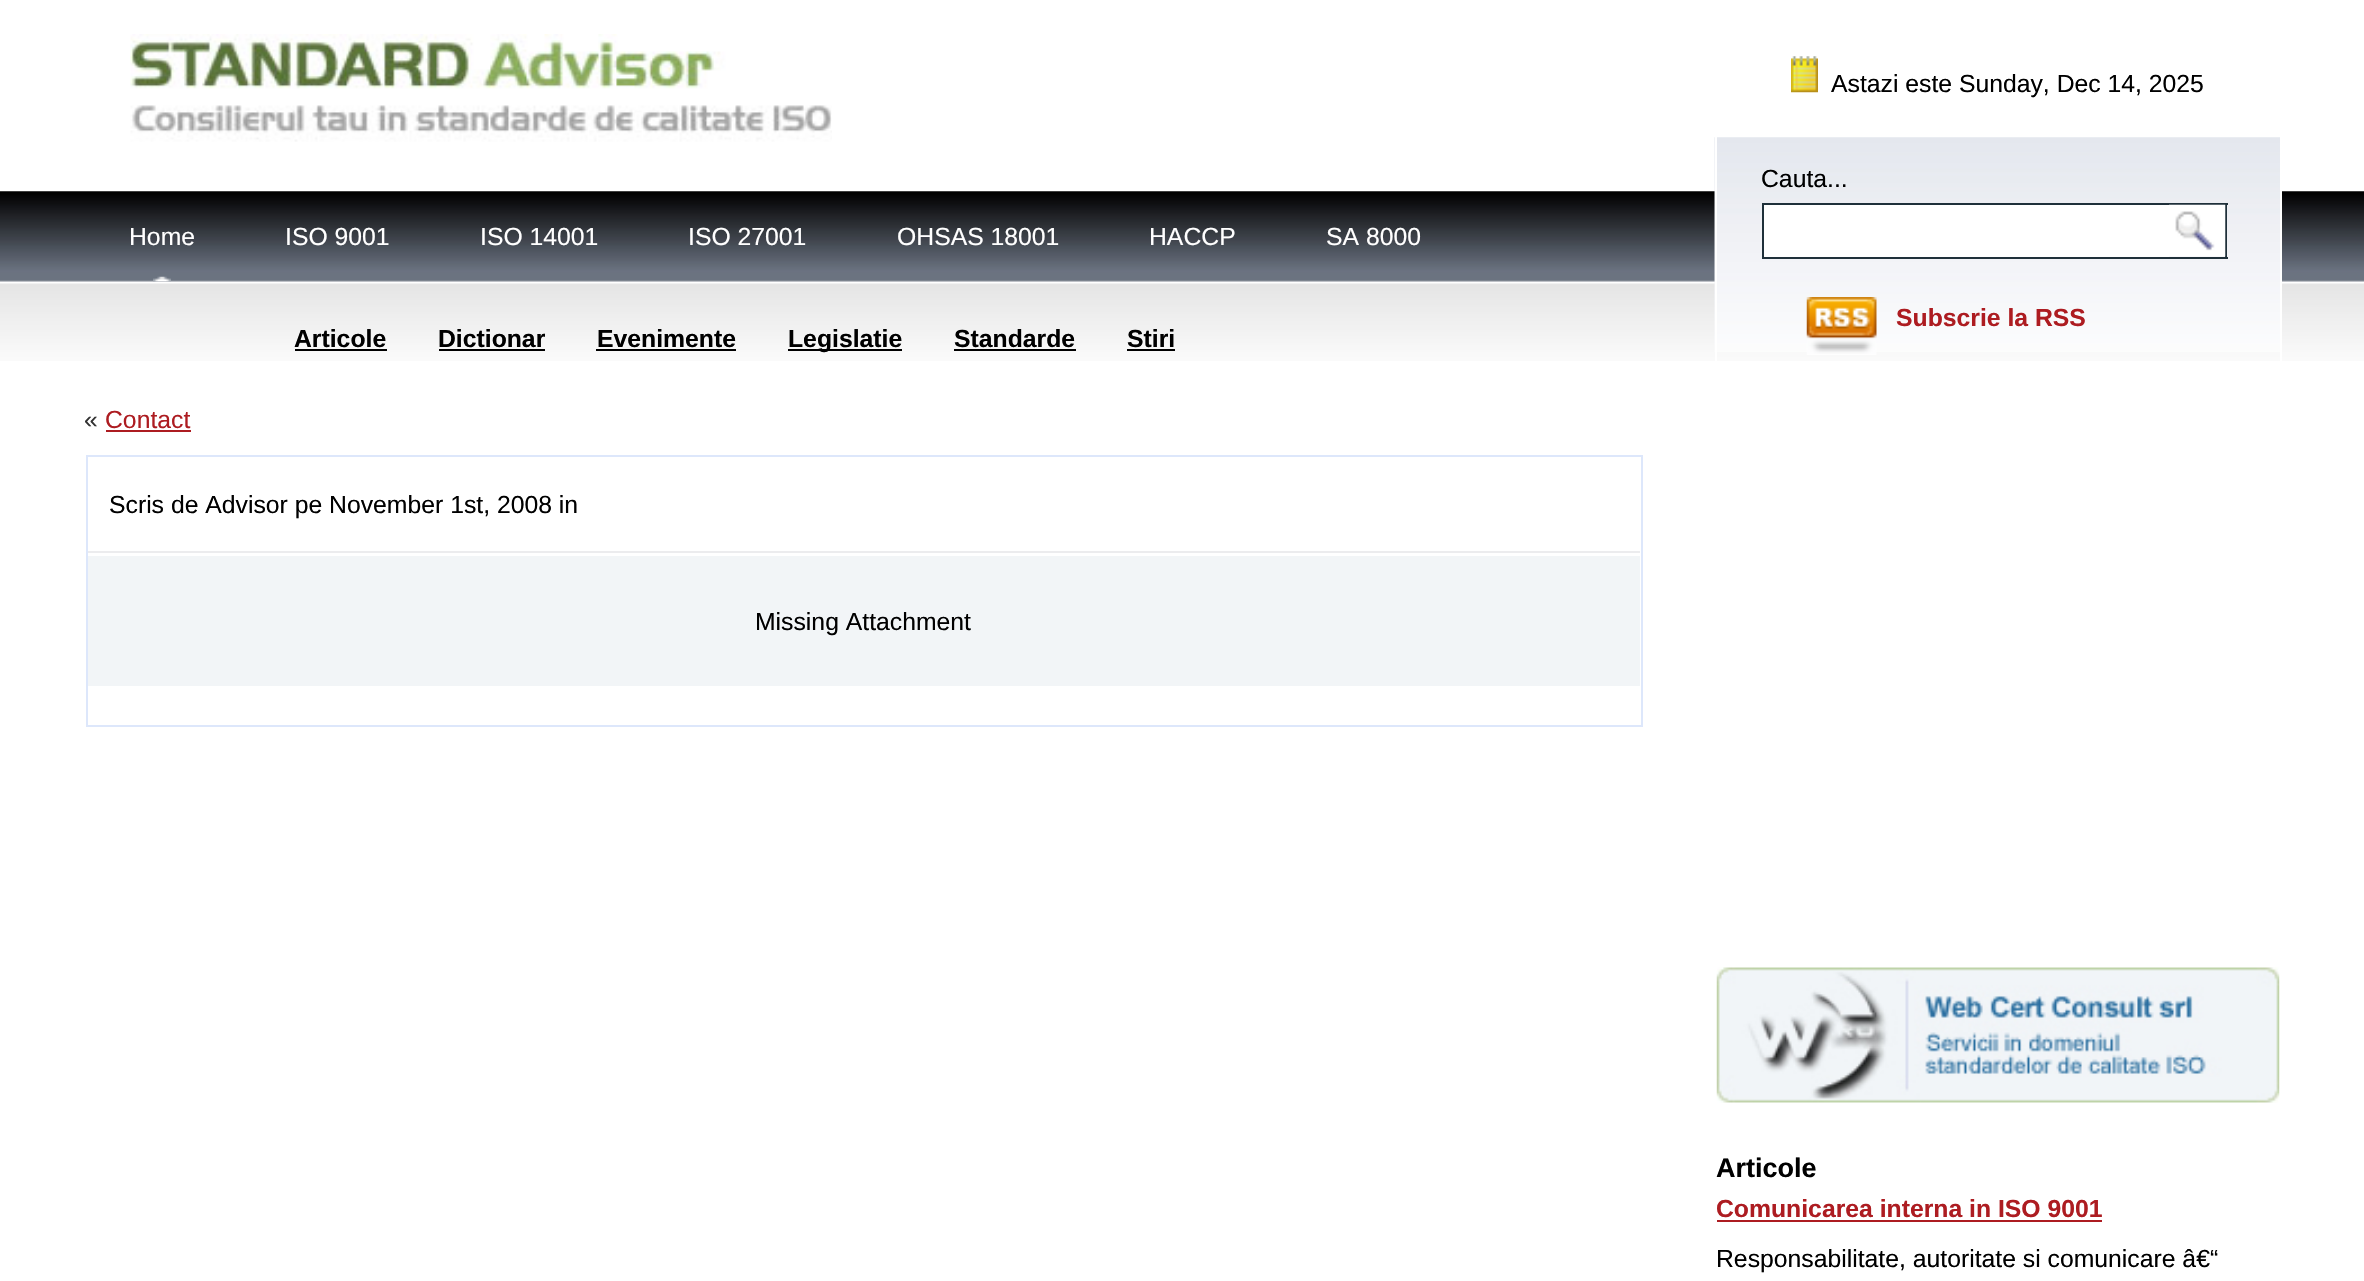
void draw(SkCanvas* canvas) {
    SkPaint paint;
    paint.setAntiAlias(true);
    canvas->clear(0xFFFFFFFF);
    canvas->drawImageRect(SkImages::DeferredFromEncodedData(SkData::MakeFromFileName("img1.png")), SkRect::MakeXYWH(0, 191, 2364, 170), SkSamplingOptions());
    canvas->drawImageRect(SkImages::DeferredFromEncodedData(SkData::MakeFromFileName("img2.png")), SkRect::MakeXYWH(130, 34, 702, 108), SkSamplingOptions());
    canvas->drawImageRect(SkImages::DeferredFromEncodedData(SkData::MakeFromFileName("img3.png")), SkRect::MakeXYWH(153, 276, 18, 6), SkSamplingOptions());
    SkFont font1(fontMgr->matchFamilyStyle("Liberation Sans", SkFontStyle::Normal()), 24.75f);
    font1.setSubpixel(true);
    paint.setColor(0xFFFFFFFF);
    canvas->drawString("Home", 129, 245, font1, paint);
    canvas->drawString("ISO 9001", 285, 245, font1, paint);
    canvas->drawString("ISO 14001", 480, 245, font1, paint);
    canvas->drawString("ISO 27001", 688, 245, font1, paint);
    canvas->drawString("OHSAS 18001", 897, 245, font1, paint);
    canvas->drawString("HACCP", 1149, 245, font1, paint);
    canvas->drawString("SA 8000", 1326, 245, font1, paint);
    SkFont font2(fontMgr->matchFamilyStyle("Liberation Sans", SkFontStyle::Bold()), 24.75f);
    font2.setSubpixel(true);
    paint.setColor(0xFF000000);
    canvas->drawString("Articole", 294, 347, font2, paint);
    canvas->drawRect(SkRect::MakeXYWH(295, 349, 92, 2), paint);
    canvas->drawString("Dictionar", 438, 347, font2, paint);
    canvas->drawRect(SkRect::MakeXYWH(439, 349, 106, 2), paint);
    canvas->drawString("Evenimente", 597, 347, font2, paint);
    canvas->drawRect(SkRect::MakeXYWH(596, 349, 140, 2), paint);
    canvas->drawRect(SkRect::MakeXYWH(788, 349, 114, 2), paint);
    canvas->drawString("Legislatie", 788, 347, font2, paint);
    canvas->drawString("Standarde", 954, 347, font2, paint);
    canvas->drawRect(SkRect::MakeXYWH(954, 349, 122, 2), paint);
    canvas->drawString("Stiri", 1127, 347, font2, paint);
    canvas->drawRect(SkRect::MakeXYWH(1127, 349, 48, 2), paint);
    paint.setColor(0xFF333333);
    canvas->drawString("«", 84, 428, font1, paint);
    paint.setColor(0xFFAD1C21);
    canvas->drawString("Contact", 105, 428, font1, paint);
    canvas->drawRect(SkRect::MakeXYWH(106, 430, 85, 2), paint);
    paint.setStyle(SkPaint::kStroke_Style);
    paint.setStrokeWidth(2);
    paint.setColor(0xFFDDE7FB);
    canvas->drawRect(SkRect::MakeXYWH(87, 456, 1555, 270), paint);
    paint.setStyle(SkPaint::kFill_Style);
    paint.setColor(0xFFECECEE);
    canvas->drawRect(SkRect::MakeXYWH(88, 551, 1552, 2), paint);
    paint.setColor(0xFF000000);
    canvas->drawString("Scris de Advisor pe November 1st, 2008 in", 109, 513, font1, paint);
    paint.setColor(0xFFF2F5F7);
    canvas->drawRect(SkRect::MakeXYWH(88, 556, 1552, 130), paint);
    paint.setColor(0xFF000000);
    canvas->drawString("Missing Attachment", 755, 630, font1, paint);
    canvas->drawImageRect(SkImages::DeferredFromEncodedData(SkData::MakeFromFileName("img4.png")), SkRect::MakeXYWH(1714, 137, 566, 215), SkSamplingOptions());
    paint.setStyle(SkPaint::kStroke_Style);
    paint.setColor(0xFFFFFFFF);
    canvas->drawRect(SkRect::MakeXYWH(1716, 1, 565, 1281), paint);
    canvas->drawImageRect(SkImages::DeferredFromEncodedData(SkData::MakeFromFileName("img5.png")), SkRect::MakeXYWH(1791, 56, 27, 37), SkSamplingOptions());
    paint.setStyle(SkPaint::kFill_Style);
    paint.setColor(0xFF000000);
    canvas->drawString("Astazi este Sunday, Dec 14, 2025", 1831, 92, font1, paint);
    canvas->drawString("Cauta...", 1761, 187, font1, paint);
    paint.setColor(0xFFFFFFFF);
    canvas->drawRect(SkRect::MakeXYWH(1764, 205, 405, 52), paint);
    paint.setColor(0xFF1F303A);
    canvas->drawRect(SkRect::MakeXYWH(1762, 203, 466, 2), paint);
    canvas->drawRect(SkRect::MakeXYWH(1762, 257, 407, 2), paint);
    canvas->drawRect(SkRect::MakeXYWH(1762, 203, 2, 56), paint);
    canvas->drawRect(SkRect::MakeXYWH(2225, 203, 2, 56), paint);
    canvas->drawRect(SkRect::MakeXYWH(2169, 257, 59, 2), paint);
    canvas->drawImageRect(SkImages::DeferredFromEncodedData(SkData::MakeFromFileName("img6.png")), SkRect::MakeXYWH(2169, 204, 57, 53), SkSamplingOptions());
    canvas->drawImageRect(SkImages::DeferredFromEncodedData(SkData::MakeFromFileName("img7.png")), SkRect::MakeXYWH(1806, 297, 71, 58), SkSamplingOptions());
    paint.setColor(0xFFAD1C21);
    canvas->drawString("Subscrie la RSS", 1896, 326, font2, paint);
    canvas->drawImageRect(SkImages::DeferredFromEncodedData(SkData::MakeFromFileName("img8.png")), SkRect::MakeXYWH(1716, 967, 564, 136), SkSamplingOptions());
    SkFont font3(fontMgr->matchFamilyStyle("Liberation Sans", SkFontStyle::Bold()), 27);
    font3.setSubpixel(true);
    paint.setColor(0xFF000000);
    canvas->drawString("Articole", 1716, 1177, font3, paint);
    paint.setColor(0xFFAD1C21);
    canvas->drawString("Comunicarea interna in ISO 9001", 1716, 1217, font2, paint);
    canvas->drawRect(SkRect::MakeXYWH(1717, 1220, 385, 2), paint);
    paint.setColor(0xFF000000);
    canvas->drawString("Responsabilitate, autoritate si comunicare â€“", 1716, 1267, font1, paint);
}
